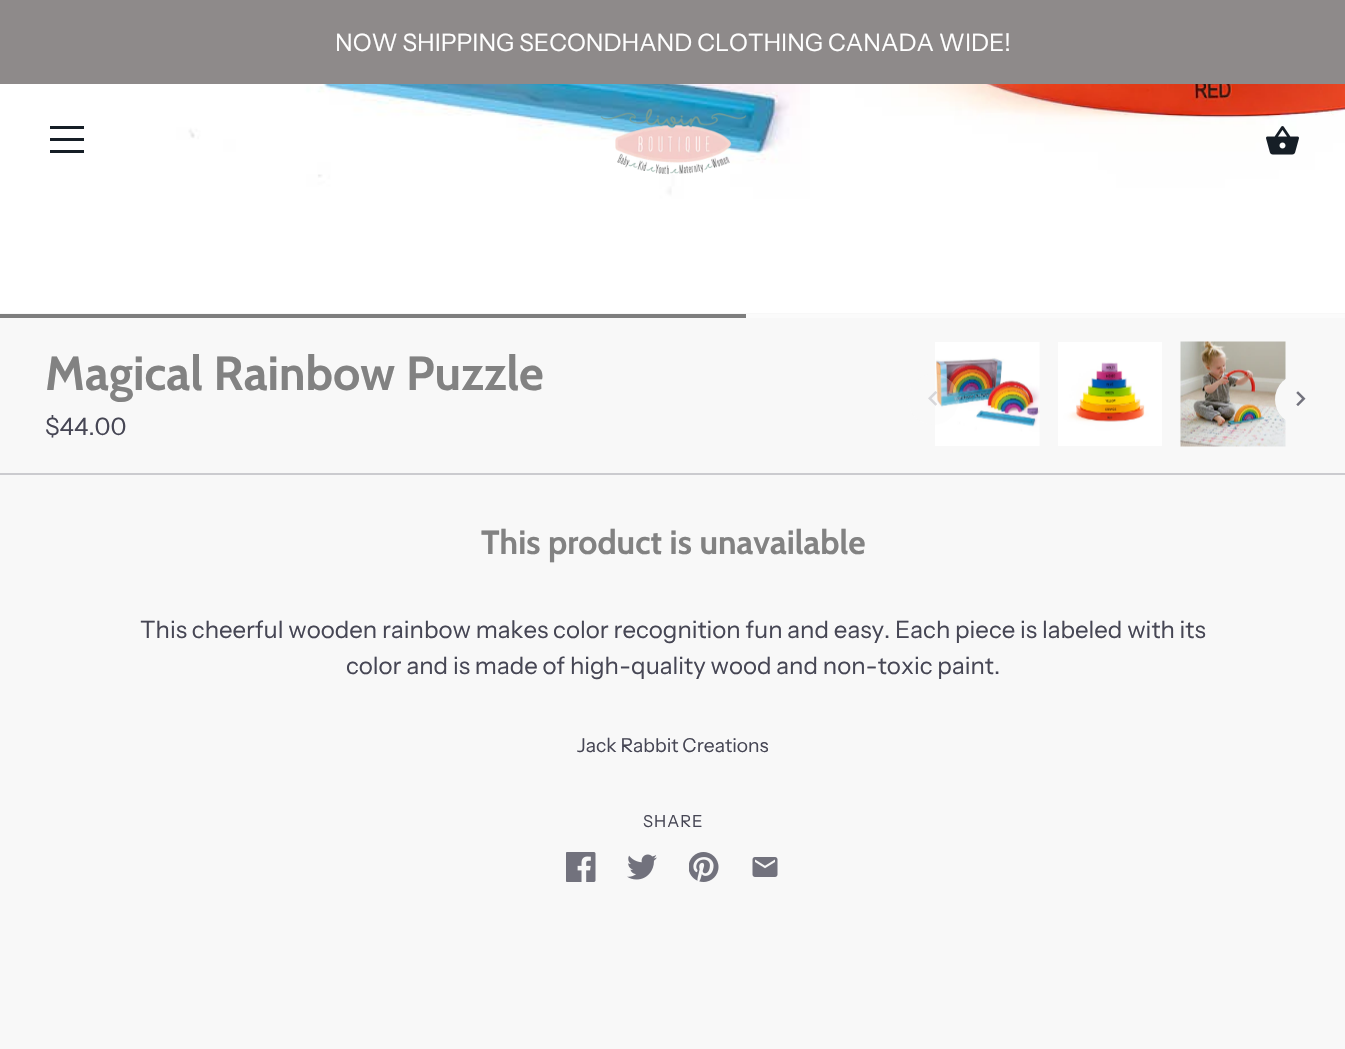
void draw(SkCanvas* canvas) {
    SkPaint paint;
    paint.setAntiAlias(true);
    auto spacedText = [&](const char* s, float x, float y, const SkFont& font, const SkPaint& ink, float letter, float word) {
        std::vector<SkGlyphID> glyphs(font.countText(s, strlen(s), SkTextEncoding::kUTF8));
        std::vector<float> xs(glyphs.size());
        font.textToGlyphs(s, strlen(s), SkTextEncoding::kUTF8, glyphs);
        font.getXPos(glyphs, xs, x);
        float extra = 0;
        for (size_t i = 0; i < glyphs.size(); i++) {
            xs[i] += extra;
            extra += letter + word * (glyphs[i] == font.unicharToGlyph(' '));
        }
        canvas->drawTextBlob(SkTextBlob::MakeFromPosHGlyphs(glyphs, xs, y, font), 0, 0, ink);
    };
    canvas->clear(0xFFF8F8F8);
    paint.setColor(0xFF8E8A8A);
    canvas->drawRect(SkRect::MakeXYWH(0, 0, 1345, 84), paint);
    SkFont font1(fontMgr->matchFamilyStyle("Instrument Sans", SkFontStyle::Normal()), 24);
    font1.setSubpixel(true);
    paint.setColor(0xFFFFFFFF);
    canvas->drawString("NOW SHIPPING SECONDHAND CLOTHING CANADA WIDE!", 335, 51, font1, paint);
    canvas->drawImageRect(SkImages::DeferredFromEncodedData(SkData::MakeFromFileName("img3.png")), SkRect::MakeXYWH(0, 84, 810, 229), SkSamplingOptions());
    paint.setColor(0xFF161E26);
    canvas->drawRect(SkRect::MakeXYWH(50, 126, 34, 3), paint);
    canvas->drawRect(SkRect::MakeXYWH(50, 138, 34, 3), paint);
    canvas->drawRect(SkRect::MakeXYWH(50, 150, 34, 3), paint);
    canvas->drawImageRect(SkImages::DeferredFromEncodedData(SkData::MakeFromFileName("img1.png")), SkRect::MakeXYWH(600, 108, 147, 67), SkSamplingOptions());
    canvas->drawImageRect(SkImages::DeferredFromEncodedData(SkData::MakeFromFileName("img4.png")), SkRect::MakeXYWH(810, 84, 535, 229), SkSamplingOptions());
    canvas->drawImageRect(SkImages::DeferredFromEncodedData(SkData::MakeFromFileName("img2.png")), SkRect::MakeXYWH(1266, 126, 33, 29), SkSamplingOptions());
    paint.setColor(0xFFFBFBFB);
    canvas->drawRect(SkRect::MakeXYWH(746, 314, 599, 4), paint);
    paint.setColor(0xFF7E7E7E);
    canvas->drawRect(SkRect::MakeXYWH(0, 314, 746, 4), paint);
    paint.setColor(0xFFCBCBCF);
    canvas->drawRect(SkRect::MakeXYWH(0, 473, 1345, 2), paint);
    SkFont font2(fontMgr->matchFamilyStyle("Cabin", SkFontStyle::Bold()), 48);
    font2.setSubpixel(true);
    paint.setColor(0xFF828282);
    canvas->drawString("Magical Rainbow Puzzle", 45, 390, font2, paint);
    paint.setColor(0xFF464654);
    canvas->drawString("$44.00", 45, 435, font1, paint);
    canvas->drawImageRect(SkImages::DeferredFromEncodedData(SkData::MakeFromFileName("img6.png")), SkRect::MakeXYWH(935, 342, 105, 104), SkSamplingOptions());
    paint.setColor(0x40F8F8F8);
    canvas->drawCircle(933.5f, 399.5f, 25.5f, paint);
    canvas->drawImageRect(SkImages::DeferredFromEncodedData(SkData::MakeFromFileName("img5.png")), SkRect::MakeXYWH(928, 391, 9, 15), SkSamplingOptions());
    canvas->drawImageRect(SkImages::DeferredFromEncodedData(SkData::MakeFromFileName("img7.png")), SkRect::MakeXYWH(1058, 342, 104, 104), SkSamplingOptions());
    canvas->drawImageRect(SkImages::DeferredFromEncodedData(SkData::MakeFromFileName("img8.png")), SkRect::MakeXYWH(1180, 341, 106, 106), SkSamplingOptions());
    paint.setColor(0xFFF8F8F8);
    canvas->drawCircle(1300.5f, 399.5f, 25.5f, paint);
    canvas->drawImageRect(SkImages::DeferredFromEncodedData(SkData::MakeFromFileName("img9.png")), SkRect::MakeXYWH(1296, 391, 10, 15), SkSamplingOptions());
    SkFont font3(fontMgr->matchFamilyStyle("Cabin", SkFontStyle::Bold()), 33.6f);
    font3.setSubpixel(true);
    paint.setColor(0xFF828282);
    canvas->drawString("This product is unavailable", 481, 554, font3, paint);
    paint.setColor(0xFF464654);
    canvas->drawString("This cheerful wooden rainbow makes color recognition fun and easy. Each piece is labeled with its", 140, 638, font1, paint);
    canvas->drawString("color and is made of high-quality wood and non-toxic paint.", 346, 674, font1, paint);
    SkFont font4(fontMgr->matchFamilyStyle("Instrument Sans", SkFontStyle::Normal()), 19.25f);
    font4.setSubpixel(true);
    canvas->drawString("Jack Rabbit Creations", 577, 752, font4, paint);
    SkFont font5(fontMgr->matchFamilyStyle("Instrument Sans", SkFontStyle::Normal()), 16.5f);
    font5.setSubpixel(true);
    spacedText("SHARE", 643, 827, font5, paint, 1, 0);
    canvas->drawImageRect(SkImages::DeferredFromEncodedData(SkData::MakeFromFileName("img10.png")), SkRect::MakeXYWH(566, 852, 30, 30), SkSamplingOptions());
    canvas->drawImageRect(SkImages::DeferredFromEncodedData(SkData::MakeFromFileName("img11.png")), SkRect::MakeXYWH(627, 854, 30, 26), SkSamplingOptions());
    canvas->drawImageRect(SkImages::DeferredFromEncodedData(SkData::MakeFromFileName("img12.png")), SkRect::MakeXYWH(689, 852, 30, 30), SkSamplingOptions());
    canvas->drawImageRect(SkImages::DeferredFromEncodedData(SkData::MakeFromFileName("img13.png")), SkRect::MakeXYWH(752, 857, 26, 20), SkSamplingOptions());
}
